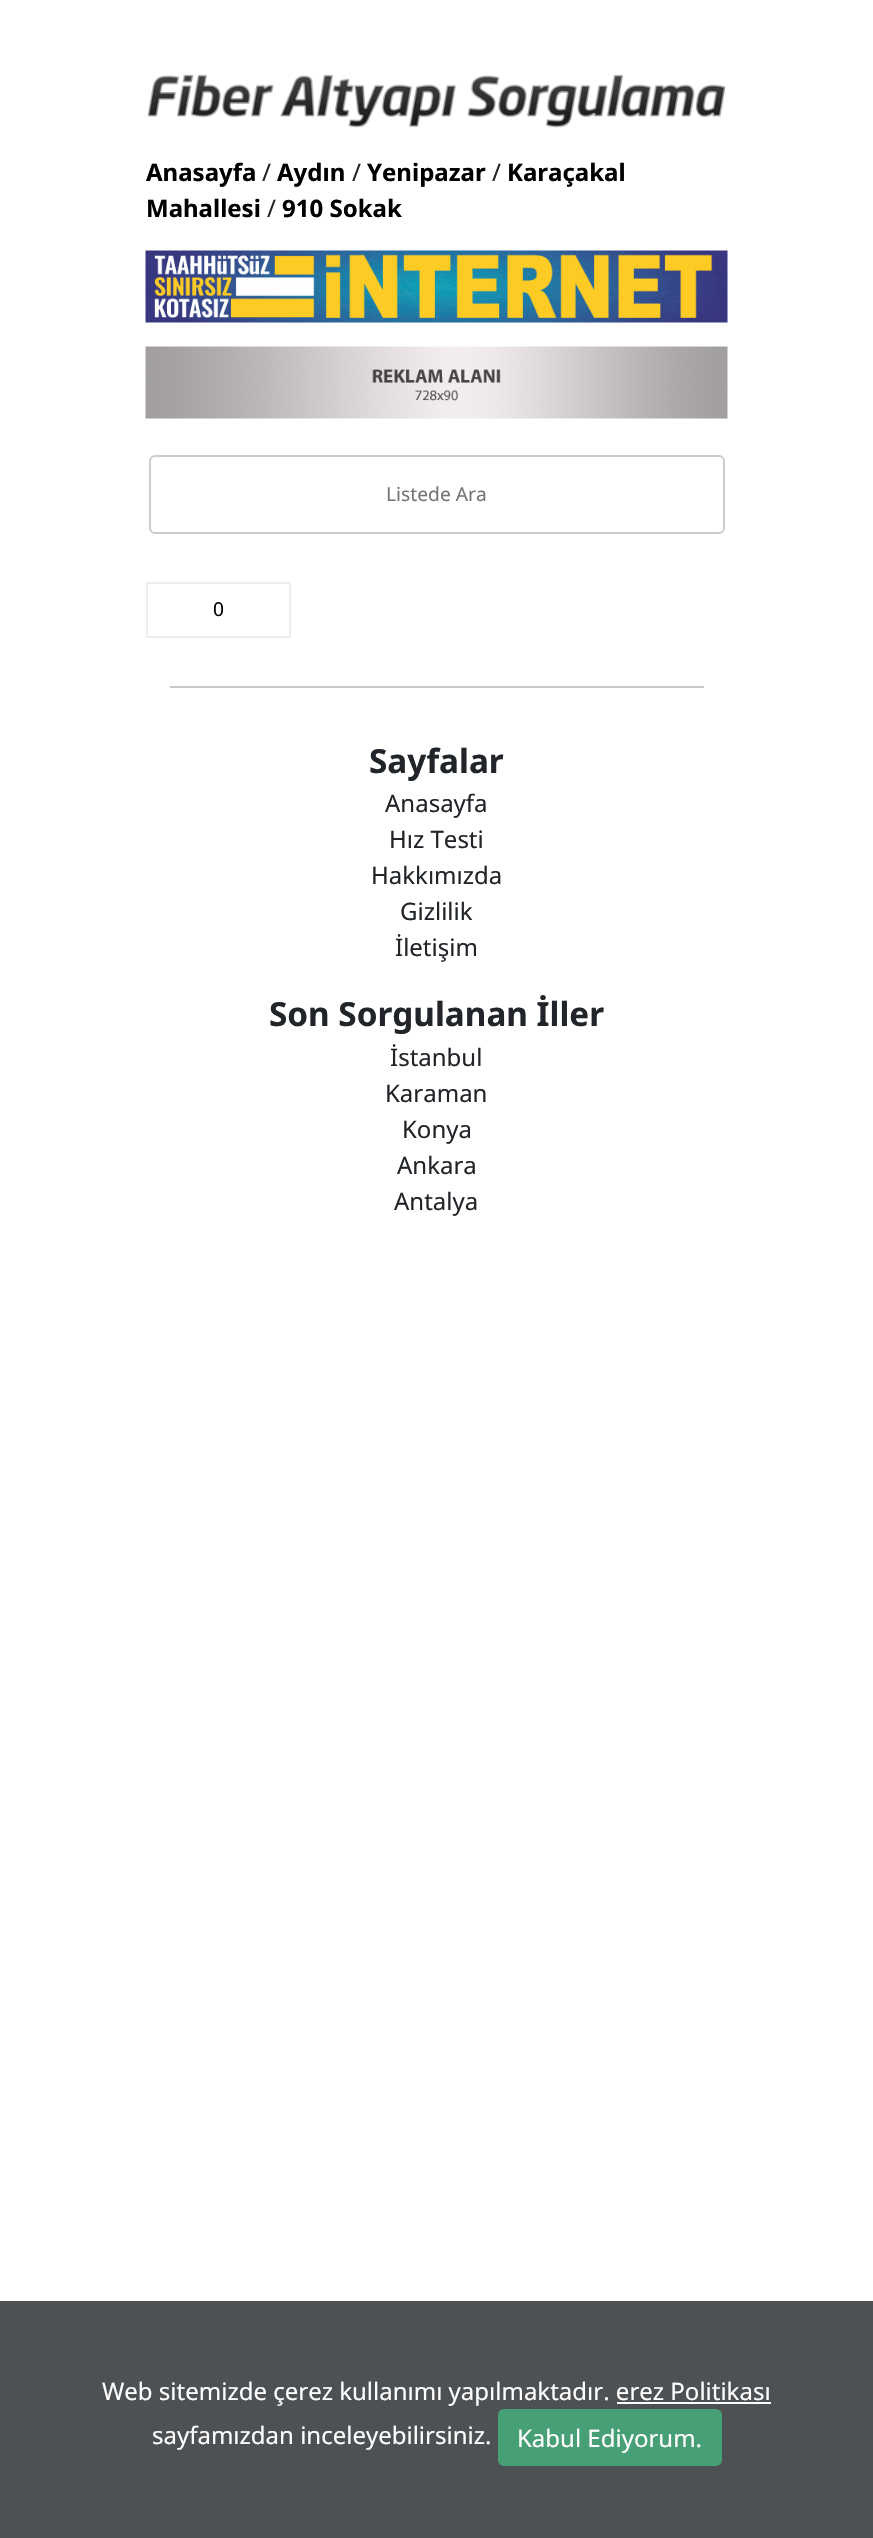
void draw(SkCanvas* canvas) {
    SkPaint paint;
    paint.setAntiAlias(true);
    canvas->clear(0xFFFFFFFF);
    canvas->drawImageRect(SkImages::DeferredFromEncodedData(SkData::MakeFromFileName("img1.png")), SkRect::MakeXYWH(147, 74, 579, 54), SkSamplingOptions());
    SkFont font1(fontMgr->matchFamilyStyle("Noto Sans", SkFontStyle::Bold()), 24);
    font1.setSubpixel(true);
    paint.setColor(0xFF000000);
    canvas->drawString("Anasayfa", 146, 181, font1, paint);
    SkFont font2(fontMgr->matchFamilyStyle("Noto Sans", SkFontStyle::Normal()), 24);
    font2.setSubpixel(true);
    paint.setColor(0xFF212529);
    canvas->drawString("/", 262, 181, font2, paint);
    paint.setColor(0xFF000000);
    canvas->drawString("Aydın", 277, 181, font1, paint);
    paint.setColor(0xFF212529);
    canvas->drawString("/", 352, 181, font2, paint);
    paint.setColor(0xFF000000);
    canvas->drawString("Yenipazar", 367, 181, font1, paint);
    paint.setColor(0xFF212529);
    canvas->drawString("/", 492, 181, font2, paint);
    paint.setColor(0xFF000000);
    canvas->drawString("Karaçakal", 507, 181, font1, paint);
    canvas->drawString("Mahallesi", 146, 217, font1, paint);
    paint.setColor(0xFF212529);
    canvas->drawString("/", 267, 217, font2, paint);
    paint.setColor(0xFF000000);
    canvas->drawString("910 Sokak", 282, 217, font1, paint);
    canvas->drawImageRect(SkImages::DeferredFromEncodedData(SkData::MakeFromFileName("img2.png")), SkRect::MakeXYWH(145, 250, 583, 73), SkSamplingOptions());
    canvas->drawImageRect(SkImages::DeferredFromEncodedData(SkData::MakeFromFileName("img3.png")), SkRect::MakeXYWH(145, 346, 583, 73), SkSamplingOptions());
    paint.setStyle(SkPaint::kStroke_Style);
    paint.setStrokeWidth(2);
    paint.setColor(0xFFCCCCCC);
    canvas->drawRoundRect(SkRect::MakeXYWH(150, 456, 574, 77), 5, 5, paint);
    SkFont font3(fontMgr->matchFamilyStyle("Noto Sans", SkFontStyle::Normal()), 19.25f);
    font3.setSubpixel(true);
    paint.setStyle(SkPaint::kFill_Style);
    paint.setColor(0xFF757575);
    canvas->drawString("Listede Ara", 386, 501, font3, paint);
    paint.setStyle(SkPaint::kStroke_Style);
    paint.setColor(0xFFEEEEEE);
    canvas->drawRect(SkRect::MakeXYWH(147, 583, 143, 54), paint);
    paint.setStyle(SkPaint::kFill_Style);
    paint.setColor(0xFF000000);
    canvas->drawString("0", 213, 616, font3, paint);
    paint.setColor(0xFFC8C9CA);
    canvas->drawRect(SkRect::MakeXYWH(170, 686, 534, 2), paint);
    SkFont font4(fontMgr->matchFamilyStyle("Noto Sans", SkFontStyle::Bold()), 33.25f);
    font4.setSubpixel(true);
    paint.setColor(0xFF212529);
    canvas->drawString("Sayfalar", 369, 773, font4, paint);
    canvas->drawString("Anasayfa", 385, 812, font2, paint);
    canvas->drawString("Hız Testi", 389, 848, font2, paint);
    canvas->drawString("Hakkımızda", 371, 884, font2, paint);
    canvas->drawString("Gizlilik", 400, 920, font2, paint);
    canvas->drawString("İletişim", 395, 956, font2, paint);
    canvas->drawString("Son Sorgulanan İller", 269, 1026, font4, paint);
    canvas->drawString("İstanbul", 390, 1066, font2, paint);
    canvas->drawString("Karaman", 385, 1102, font2, paint);
    canvas->drawString("Konya", 402, 1138, font2, paint);
    canvas->drawString("Ankara", 397, 1174, font2, paint);
    canvas->drawString("Antalya", 394, 1210, font2, paint);
    paint.setColor(0xFF4E5154);
    canvas->drawRect(SkRect::MakeXYWH(0, 2301, 873, 237), paint);
    paint.setColor(0xFFFFFFFF);
    canvas->drawString("Web sitemizde çerez kullanımı yapılmaktadır. erez Politikası", 102, 2400, font2, paint);
    canvas->drawRect(SkRect::MakeXYWH(617, 2402, 154, 2), paint);
    canvas->drawString("sayfamızdan inceleyebilirsiniz.", 152, 2444, font2, paint);
    paint.setColor(0xFF479F76);
    canvas->drawRoundRect(SkRect::MakeXYWH(499, 2410, 222, 55), 5, 5, paint);
    paint.setStyle(SkPaint::kStroke_Style);
    canvas->drawRoundRect(SkRect::MakeXYWH(499, 2410, 222, 55), 5, 5, paint);
    paint.setStyle(SkPaint::kFill_Style);
    paint.setColor(0xFFFFFFFF);
    canvas->drawString("Kabul Ediyorum.", 517, 2447, font2, paint);
}
